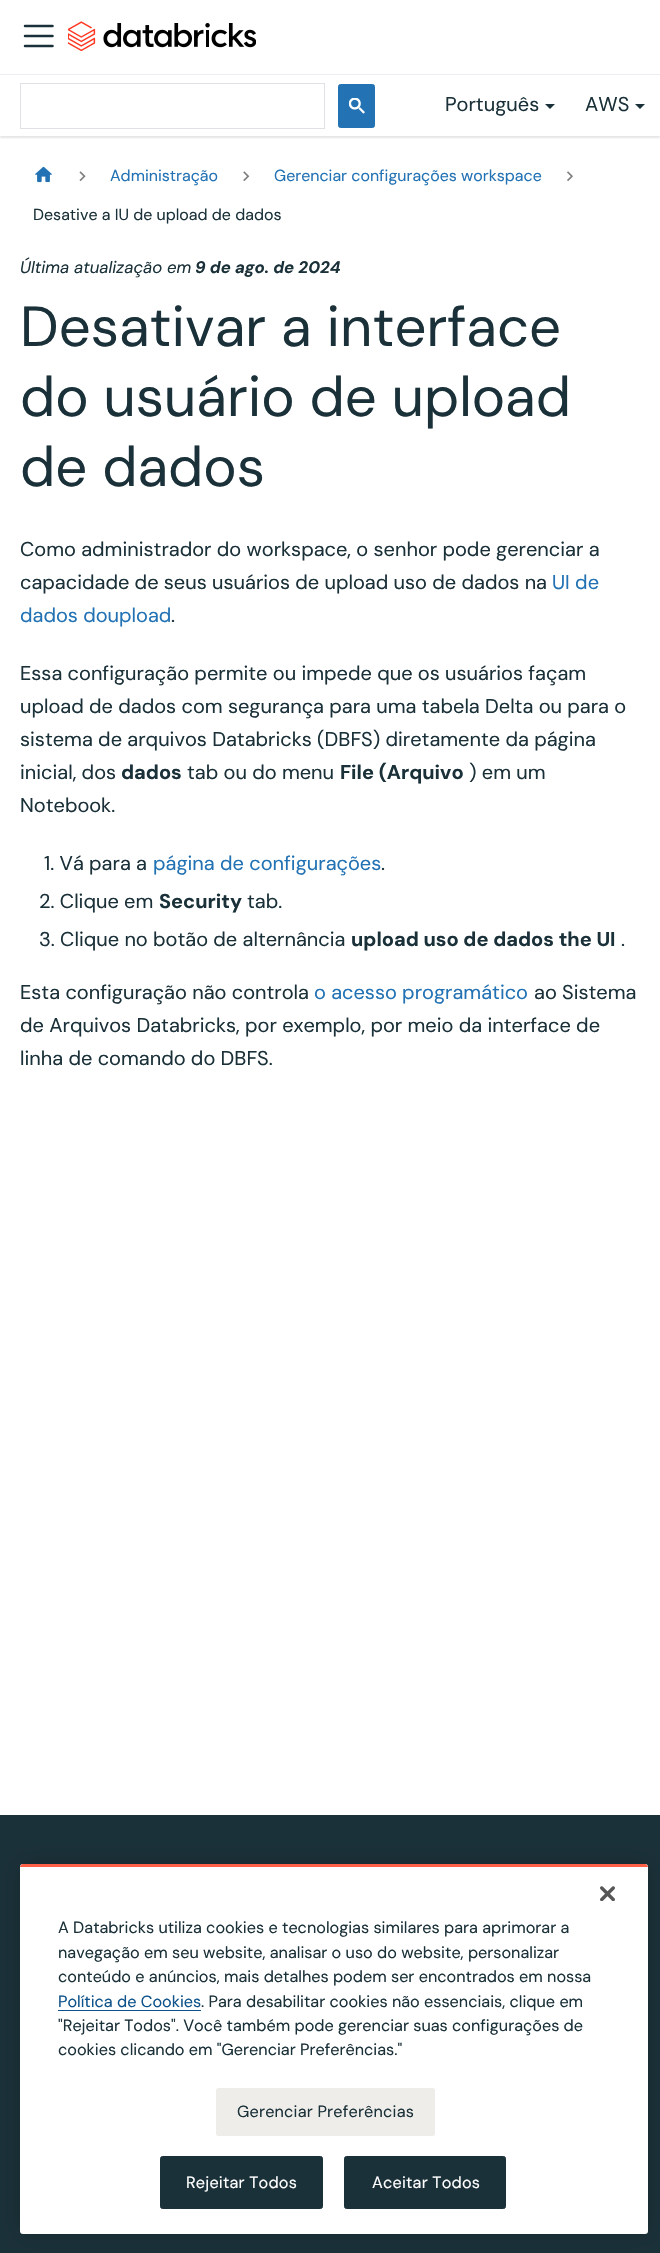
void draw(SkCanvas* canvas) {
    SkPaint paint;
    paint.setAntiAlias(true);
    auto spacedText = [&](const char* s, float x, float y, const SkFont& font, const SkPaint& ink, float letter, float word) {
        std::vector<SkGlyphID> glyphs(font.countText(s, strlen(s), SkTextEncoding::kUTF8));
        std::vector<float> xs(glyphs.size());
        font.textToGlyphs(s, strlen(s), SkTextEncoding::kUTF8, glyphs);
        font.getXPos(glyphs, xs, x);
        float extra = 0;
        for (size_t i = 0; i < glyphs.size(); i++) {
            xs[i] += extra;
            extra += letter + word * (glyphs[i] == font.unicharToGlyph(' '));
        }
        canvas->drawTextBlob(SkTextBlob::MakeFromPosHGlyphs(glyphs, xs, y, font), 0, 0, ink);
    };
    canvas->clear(0xFFFFFFFF);
    canvas->save();
    canvas->clipRect(SkRect::MakeXYWH(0, 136, 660, 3));
    paint.setColor(0x1A000000);
    paint.setMaskFilter(SkMaskFilter::MakeBlur(kNormal_SkBlurStyle, 1));
    canvas->drawRect(SkRect::MakeXYWH(0, 1, 660, 137), paint);
    paint.setMaskFilter(nullptr);
    canvas->restore();
    paint.setColor(0xFFEBEDF0);
    canvas->drawRect(SkRect::MakeXYWH(0, 74, 660, 1), paint);
    paint.setStyle(SkPaint::kStroke_Style);
    paint.setStrokeWidth(2.5f);
    paint.setStrokeCap(SkPaint::kRound_Cap);
    paint.setColor(0xFF1B3139);
    canvas->drawPath(SkPathBuilder().moveTo(25, 26).lineTo(52.5f, 26).moveTo(25, 36).lineTo(52.5f, 36).moveTo(25, 46).lineTo(52.5f, 46).detach(), paint);
    canvas->drawImageRect(SkImages::DeferredFromEncodedData(SkData::MakeFromFileName("img1.png")), SkRect::MakeXYWH(68, 21, 188, 30), SkSamplingOptions());
    paint.setStrokeWidth(1);
    paint.setStrokeCap(SkPaint::kButt_Cap);
    paint.setColor(0xFFDFE1E5);
    canvas->drawRect(SkRect::MakeXYWH(20.5f, 83.5f, 304, 45), paint);
    paint.setStyle(SkPaint::kFill_Style);
    paint.setColor(0xFF2272B4);
    canvas->drawRoundRect(SkRect::MakeXYWH(338.5f, 84.5f, 36, 43), 2, 2, paint);
    paint.setStyle(SkPaint::kStroke_Style);
    canvas->drawRoundRect(SkRect::MakeXYWH(338.5f, 84.5f, 36, 43), 2, 2, paint);
    canvas->drawImageRect(SkImages::DeferredFromEncodedData(SkData::MakeFromFileName("img2.png")), SkRect::MakeXYWH(349, 98, 16, 16), SkSamplingOptions());
    SkFont font1(fontMgr->matchFamilyStyle("DM Sans", SkFontStyle::Normal()), 20);
    font1.setSubpixel(true);
    paint.setStyle(SkPaint::kFill_Style);
    paint.setColor(0xFF1B3139);
    canvas->drawString("Português", 445, 111, font1, paint);
    canvas->drawPath(SkPathBuilder().moveTo(545, 104).lineTo(555, 104).lineTo(550, 109).close().detach(), paint);
    canvas->drawString("AWS", 585, 111, font1, paint);
    canvas->drawPath(SkPathBuilder().moveTo(635, 104).lineTo(645, 104).lineTo(640, 109).close().detach(), paint);
    canvas->drawImageRect(SkImages::DeferredFromEncodedData(SkData::MakeFromFileName("img3.png")), SkRect::MakeXYWH(35, 166, 17, 17), SkSamplingOptions());
    canvas->drawImageRect(SkImages::DeferredFromEncodedData(SkData::MakeFromFileName("img4.png")), SkRect::MakeXYWH(79, 171, 7, 10), SkSamplingOptions());
    SkFont font2(fontMgr->matchFamilyStyle("DM Sans", SkFontStyle::Normal()), 16);
    font2.setSubpixel(true);
    paint.setColor(0xFF2272B4);
    canvas->drawString("Administração", 110, 181, font2, paint);
    canvas->drawImageRect(SkImages::DeferredFromEncodedData(SkData::MakeFromFileName("img5.png")), SkRect::MakeXYWH(243, 171, 7, 10), SkSamplingOptions());
    canvas->drawString("Gerenciar configurações workspace", 274, 181, font2, paint);
    canvas->drawImageRect(SkImages::DeferredFromEncodedData(SkData::MakeFromFileName("img6.png")), SkRect::MakeXYWH(567, 171, 6, 10), SkSamplingOptions());
    paint.setColor(0xFF1B3139);
    canvas->drawString("Desative a IU de upload de dados", 33, 220, font2, paint);
    SkFont font3(fontMgr->matchFamilyStyle("DM Sans", SkFontStyle::Italic()), 16.75f);
    font3.setSubpixel(true);
    canvas->drawString("Última atualização em", 20, 273, font3, paint);
    SkFont font4(fontMgr->matchFamilyStyle("DM Sans", SkFontStyle::BoldItalic()), 16.75f);
    font4.setSubpixel(true);
    canvas->drawString("9 de ago. de 2024", 195, 273, font4, paint);
    SkFont font5(fontMgr->matchFamilyStyle("DM Sans", SkFontStyle::Normal()), 56.25f);
    font5.setSubpixel(true);
    canvas->drawString("Desativar a interface", 20, 346, font5, paint);
    canvas->drawString("do usuário de upload", 20, 416, font5, paint);
    canvas->drawString("de dados", 20, 486, font5, paint);
    canvas->drawString("Como administrador do workspace, o senhor pode gerenciar a", 20, 556, font1, paint);
    canvas->drawString("capacidade de seus usuários de upload uso de dados na", 20, 589, font1, paint);
    paint.setColor(0xFF2272B4);
    canvas->drawString("UI de", 552, 589, font1, paint);
    canvas->drawString("dados doupload", 20, 622, font1, paint);
    paint.setColor(0xFF1B3139);
    canvas->drawString(".", 171, 622, font1, paint);
    canvas->drawString("Essa configuração permite ou impede que os usuários façam", 20, 680, font1, paint);
    canvas->drawString("upload de dados com segurança para uma tabela Delta ou para o", 20, 713, font1, paint);
    canvas->drawString("sistema de arquivos Databricks (DBFS) diretamente da página", 20, 746, font1, paint);
    canvas->drawString("inicial, dos", 20, 779, font1, paint);
    SkFont font6(fontMgr->matchFamilyStyle("DM Sans", SkFontStyle::Bold()), 20);
    font6.setSubpixel(true);
    canvas->drawString("dados", 121, 779, font6, paint);
    canvas->drawString("tab ou do menu", 187, 779, font1, paint);
    canvas->drawString("File (Arquivo", 340, 779, font6, paint);
    canvas->drawString(") em um", 469, 779, font1, paint);
    canvas->drawString("Notebook.", 20, 812, font1, paint);
    canvas->drawString("1. Vá para a", 44, 870, font1, paint);
    paint.setColor(0xFF2272B4);
    canvas->drawString("página de configurações", 153, 870, font1, paint);
    paint.setColor(0xFF1B3139);
    canvas->drawString(".", 381, 870, font1, paint);
    canvas->drawString("2. Clique em", 39, 908, font1, paint);
    canvas->drawString("Security", 159, 908, font6, paint);
    canvas->drawString("tab.", 247, 908, font1, paint);
    canvas->drawString("3. Clique no botão de alternância", 39, 946, font1, paint);
    canvas->drawString("upload uso de dados the UI", 351, 946, font6, paint);
    canvas->drawString(".", 621, 946, font1, paint);
    canvas->drawString("Esta configuração não controla", 20, 999, font1, paint);
    paint.setColor(0xFF2272B4);
    canvas->drawString("o acesso programático", 314, 999, font1, paint);
    paint.setColor(0xFF1B3139);
    canvas->drawString("ao Sistema", 534, 999, font1, paint);
    canvas->drawString("de Arquivos Databricks, por exemplo, por meio da interface de", 20, 1032, font1, paint);
    canvas->drawString("linha de comando do DBFS.", 20, 1065, font1, paint);
    canvas->drawRect(SkRect::MakeXYWH(0, 1815, 660, 438), paint);
    paint.setColor(0x33000000);
    paint.setMaskFilter(SkMaskFilter::MakeBlur(kNormal_SkBlurStyle, 11));
    canvas->drawRoundRect(SkRect::MakeXYWH(20, 1864, 628, 370), 3, 3, paint);
    paint.setMaskFilter(nullptr);
    paint.setColor(0xFFFFFFFF);
    canvas->drawRoundRect(SkRect::MakeXYWH(20, 1864, 628, 370), 3, 3, paint);
    paint.setColor(0xFFFF5F46);
    canvas->drawPath(SkPathBuilder().moveTo(23, 1864).lineTo(645, 1864).cubicTo(646.5f, 1864, 648, 1865.5f, 648, 1867).lineTo(20, 1867).cubicTo(20, 1865.5f, 21.5f, 1864, 23, 1864).close().detach(), paint);
    canvas->drawImageRect(SkImages::DeferredFromEncodedData(SkData::MakeFromFileName("img7.png")), SkRect::MakeXYWH(600, 1886, 15, 15), SkSamplingOptions());
    SkFont font7(fontMgr->matchFamilyStyle("DM Sans", SkFontStyle::Normal()), 16.25f);
    font7.setSubpixel(true);
    paint.setColor(0xFF1B3139);
    canvas->drawString("A Databricks utiliza cookies e tecnologias similares para aprimorar a", 58, 1933, font7, paint);
    canvas->drawString("navegação em seu website, analisar o uso do website, personalizar", 58, 1958, font7, paint);
    canvas->drawString("conteúdo e anúncios, mais detalhes podem ser encontrados em nossa", 58, 1982, font7, paint);
    paint.setColor(0xFF0E538B);
    canvas->drawString("Política de Cookies", 58, 2007, font7, paint);
    canvas->drawRect(SkRect::MakeXYWH(58, 2010, 143, 1), paint);
    paint.setColor(0xFF1B3139);
    canvas->drawString(". Para desabilitar cookies não essenciais, clique em", 201, 2007, font7, paint);
    canvas->drawString("\"Rejeitar Todos\". Você também pode gerenciar suas configurações de", 58, 2031, font7, paint);
    canvas->drawString("cookies clicando em \"Gerenciar Preferências.\"", 58, 2055, font7, paint);
    paint.setColor(0xFFEEEDE9);
    canvas->drawRoundRect(SkRect::MakeXYWH(216, 2088, 219, 48), 2.5f, 2.5f, paint);
    paint.setColor(0xFF1B3139);
    spacedText("Gerenciar Preferências", 237, 2117, font7, paint, 0.2f, 0);
    canvas->drawRoundRect(SkRect::MakeXYWH(160.5f, 2156.5f, 162, 52), 2, 2, paint);
    paint.setStyle(SkPaint::kStroke_Style);
    canvas->drawRoundRect(SkRect::MakeXYWH(160.5f, 2156.5f, 162, 52), 2, 2, paint);
    paint.setStyle(SkPaint::kFill_Style);
    paint.setColor(0xFFFFFFFF);
    spacedText("Rejeitar Todos", 186, 2188, font7, paint, 0.2f, 0);
    paint.setColor(0xFF1B3139);
    canvas->drawRoundRect(SkRect::MakeXYWH(344.5f, 2156.5f, 161, 52), 2, 2, paint);
    paint.setStyle(SkPaint::kStroke_Style);
    canvas->drawRoundRect(SkRect::MakeXYWH(344.5f, 2156.5f, 161, 52), 2, 2, paint);
    paint.setStyle(SkPaint::kFill_Style);
    paint.setColor(0xFFFFFFFF);
    spacedText("Aceitar Todos", 372, 2188, font7, paint, 0.2f, 0);
}
